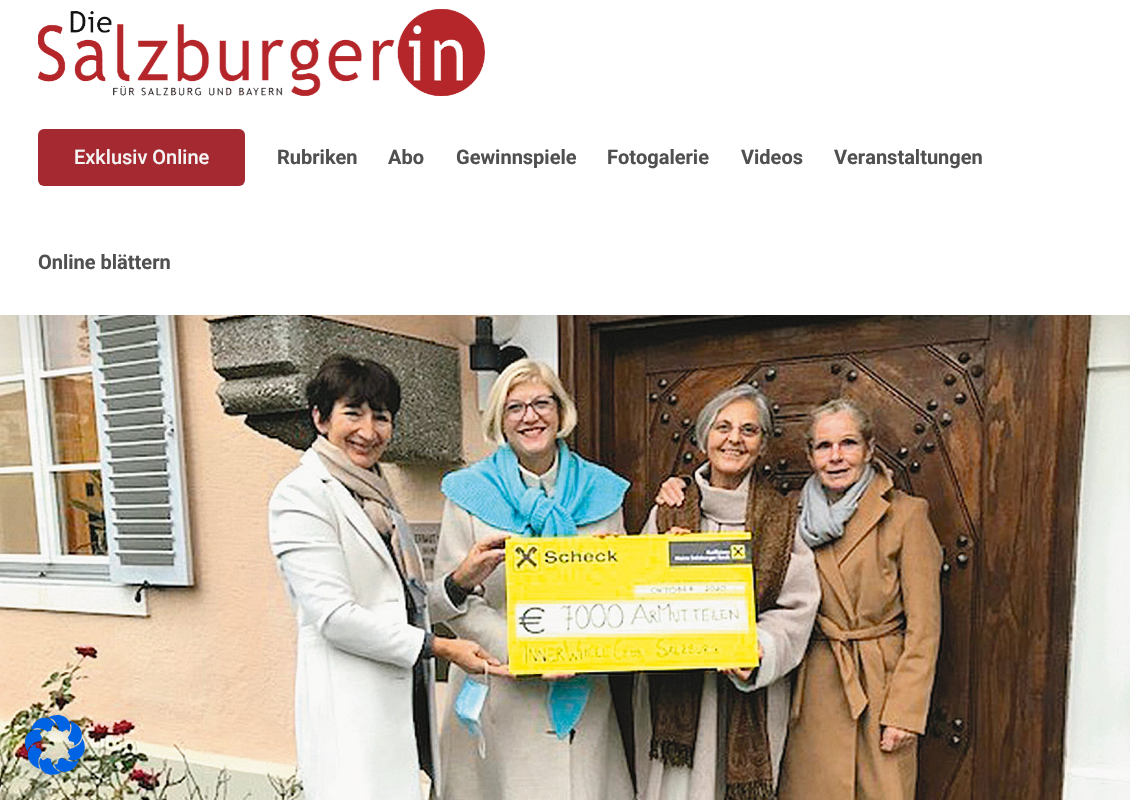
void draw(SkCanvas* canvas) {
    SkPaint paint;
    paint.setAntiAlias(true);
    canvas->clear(0xFFFFFFFF);
    canvas->drawImageRect(SkImages::DeferredFromEncodedData(SkData::MakeFromFileName("img2.png")), SkRect::MakeXYWH(0, 315, 1130, 485), SkSamplingOptions());
    canvas->save();
    canvas->clipRect(SkRect::MakeXYWH(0, 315, 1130, 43));
    paint.setColor(0x24000000);
    paint.setMaskFilter(SkMaskFilter::MakeBlur(kNormal_SkBlurStyle, 31));
    canvas->drawRect(SkRect::MakeXYWH(3, 15, 1125, 310), paint);
    paint.setMaskFilter(nullptr);
    canvas->restore();
    canvas->drawImageRect(SkImages::DeferredFromEncodedData(SkData::MakeFromFileName("img1.png")), SkRect::MakeXYWH(38, 9, 447, 87), SkSamplingOptions());
    paint.setColor(0xFFA42931);
    canvas->drawRoundRect(SkRect::MakeXYWH(38, 129, 207, 57), 6, 6, paint);
    SkFont font1(fontMgr->matchFamilyStyle("Roboto", SkFontStyle(500, SkFontStyle::kNormal_Width, SkFontStyle::kUpright_Slant)), 20);
    font1.setSubpixel(true);
    paint.setColor(0xFFF5F5F5);
    canvas->drawString("Exklusiv Online", 74, 164, font1, paint);
    SkFont font2(fontMgr->matchFamilyStyle("Roboto", SkFontStyle::Bold()), 20);
    font2.setSubpixel(true);
    paint.setColor(0xFF505050);
    canvas->drawString("Rubriken", 277, 164, font2, paint);
    canvas->drawString("Abo", 388, 164, font2, paint);
    canvas->drawString("Gewinnspiele", 456, 164, font2, paint);
    canvas->drawString("Fotogalerie", 607, 164, font2, paint);
    canvas->drawString("Videos", 741, 164, font2, paint);
    canvas->drawString("Veranstaltungen", 834, 164, font2, paint);
    canvas->drawString("Online blättern", 38, 269, font2, paint);
    canvas->drawImageRect(SkImages::DeferredFromEncodedData(SkData::MakeFromFileName("img3.png")), SkRect::MakeXYWH(20, 710, 70, 70), SkSamplingOptions());
}
